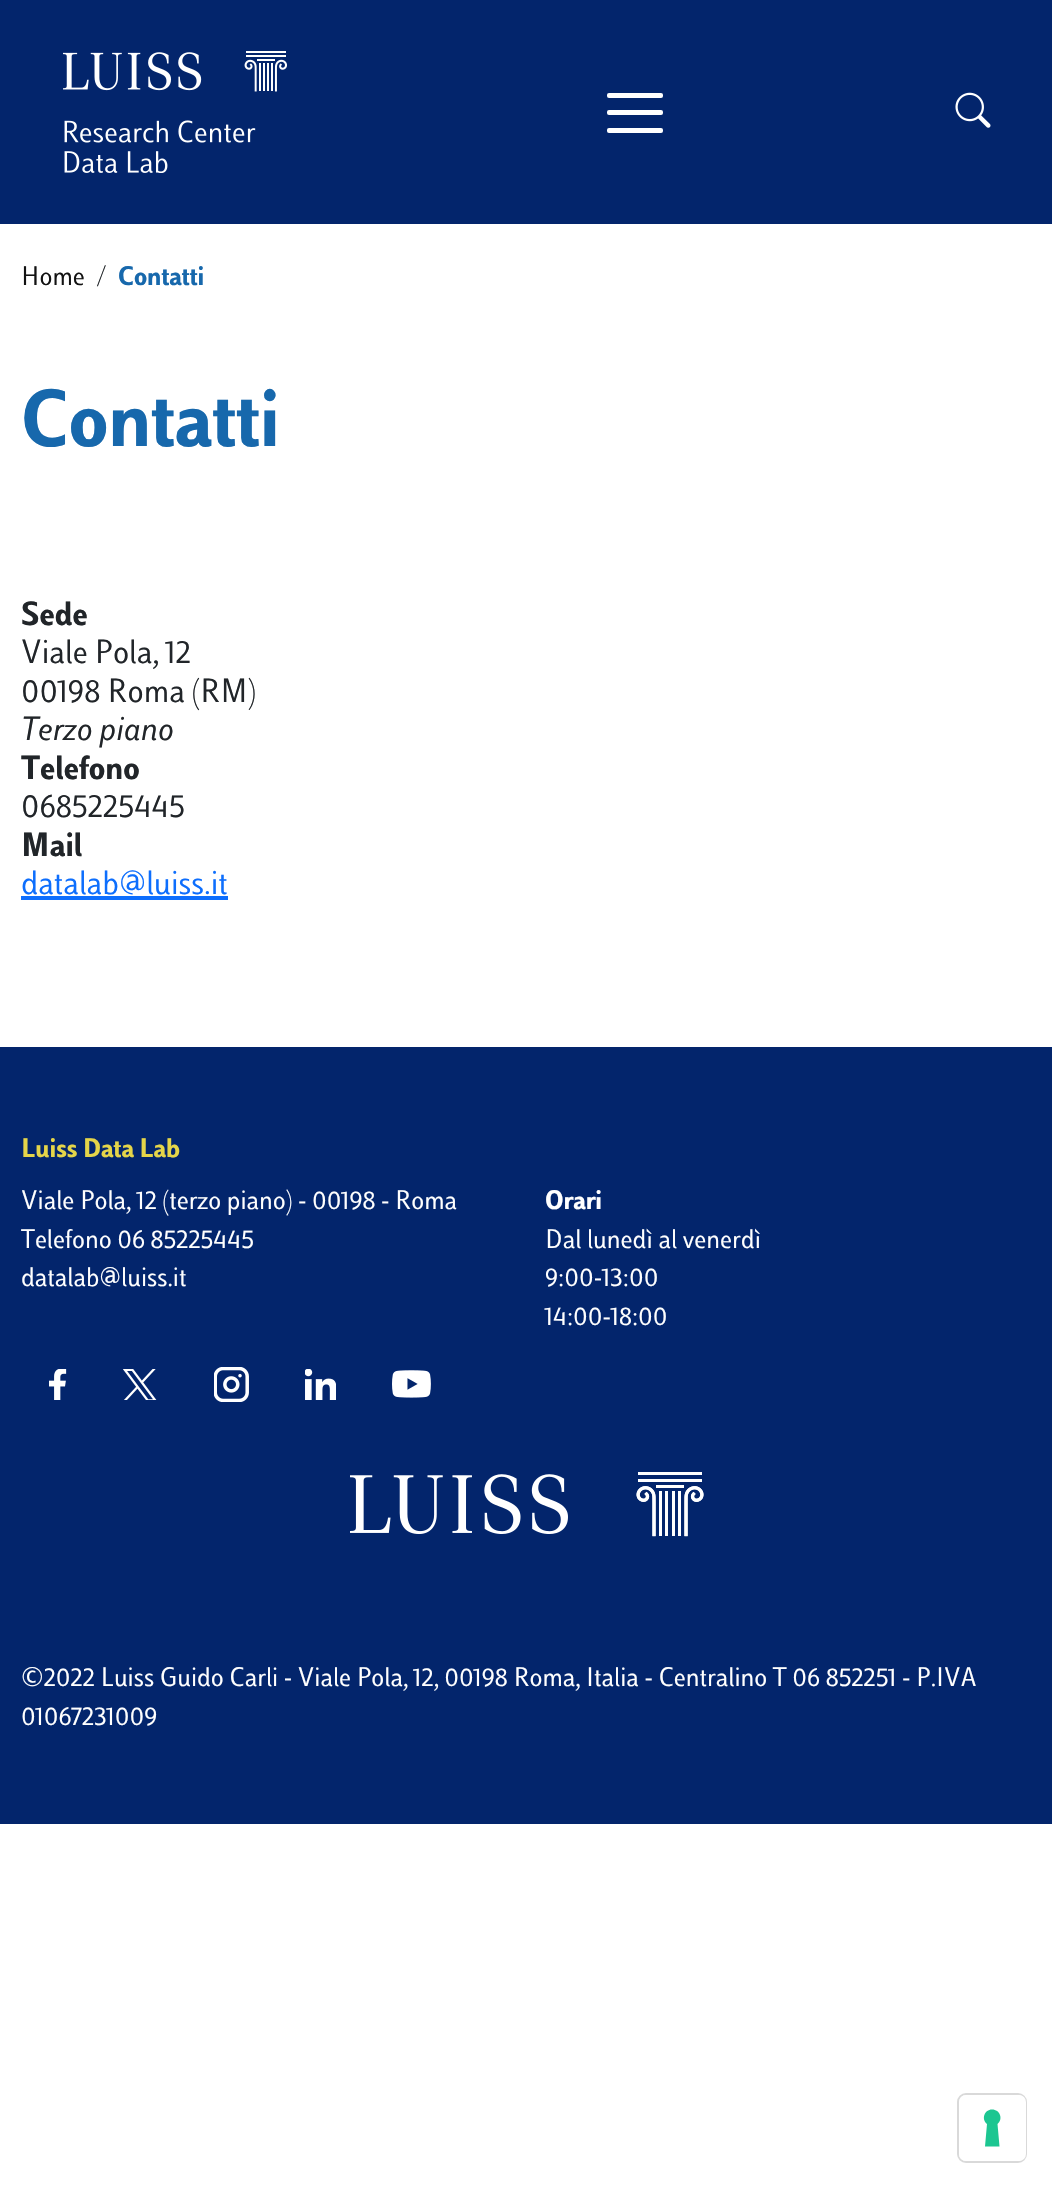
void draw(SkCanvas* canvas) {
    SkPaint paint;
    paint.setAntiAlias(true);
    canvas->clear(0xFFFFFFFF);
    paint.setColor(0xFF03256C);
    canvas->drawRect(SkRect::MakeXYWH(0, 0, 1052, 224), paint);
    canvas->drawImageRect(SkImages::DeferredFromEncodedData(SkData::MakeFromFileName("img1.png")), SkRect::MakeXYWH(63, 51, 224, 122), SkSamplingOptions());
    paint.setColor(0xFFFFFFFF);
    canvas->drawRoundRect(SkRect::MakeXYWH(607, 93, 56, 5), 2, 2, paint);
    canvas->drawRoundRect(SkRect::MakeXYWH(607, 110, 56, 5), 2, 2, paint);
    canvas->drawRoundRect(SkRect::MakeXYWH(607, 128, 56, 5), 2, 2, paint);
    canvas->drawImageRect(SkImages::DeferredFromEncodedData(SkData::MakeFromFileName("img2.png")), SkRect::MakeXYWH(955, 92, 36, 36), SkSamplingOptions());
    SkFont font1(fontMgr->matchFamilyStyle("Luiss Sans", SkFontStyle::Normal()), 28);
    font1.setSubpixel(true);
    paint.setColor(0xFF121212);
    canvas->drawString("Home", 21, 285, font1, paint);
    paint.setColor(0xFF212529);
    canvas->drawString("/", 96, 285, font1, paint);
    SkFont font2(fontMgr->matchFamilyStyle("Luiss Sans", SkFontStyle::Bold()), 28);
    font2.setSubpixel(true);
    paint.setColor(0xFF1768AC);
    canvas->drawString("Contatti", 118, 285, font2, paint);
    SkFont font3(fontMgr->matchFamilyStyle("Luiss Sans", SkFontStyle::Bold()), 84);
    font3.setSubpixel(true);
    canvas->drawString("Contatti", 21, 446, font3, paint);
    SkFont font4(fontMgr->matchFamilyStyle("Luiss Sans", SkFontStyle::Bold()), 35);
    font4.setSubpixel(true);
    paint.setColor(0xFF212529);
    canvas->drawString("Sede", 21, 625, font4, paint);
    SkFont font5(fontMgr->matchFamilyStyle("Luiss Sans", SkFontStyle::Normal()), 35);
    font5.setSubpixel(true);
    canvas->drawString("Viale Pola, 12", 21, 663, font5, paint);
    canvas->drawString("00198 Roma (RM)", 21, 702, font5, paint);
    SkFont font6(fontMgr->matchFamilyStyle("Luiss Sans", SkFontStyle::Italic()), 35);
    font6.setSubpixel(true);
    canvas->drawString("Terzo piano", 21, 740, font6, paint);
    canvas->drawString("Telefono", 21, 779, font4, paint);
    canvas->drawString("0685225445", 21, 817, font5, paint);
    canvas->drawString("Mail", 21, 856, font4, paint);
    paint.setColor(0xFF0D6EFD);
    canvas->drawString("datalab@luiss.it", 21, 894, font5, paint);
    canvas->drawRect(SkRect::MakeXYWH(21, 896, 207, 4), paint);
    paint.setColor(0xFF03256C);
    canvas->drawRect(SkRect::MakeXYWH(0, 1047, 1052, 777), paint);
    paint.setColor(0xFFE5D549);
    canvas->drawString("Luiss Data Lab", 21, 1157, font2, paint);
    paint.setColor(0xFFFFFFFF);
    canvas->drawString("Viale Pola, 12 (terzo piano) - 00198 - Roma", 21, 1209, font1, paint);
    canvas->drawString("Telefono 06 85225445", 21, 1248, font1, paint);
    canvas->drawString("datalab@luiss.it", 21, 1286, font1, paint);
    canvas->drawString("Orari", 545, 1209, font2, paint);
    canvas->drawString("Dal lunedì al venerdì", 545, 1248, font1, paint);
    canvas->drawString("9:00-13:00", 545, 1286, font1, paint);
    canvas->drawString("14:00-18:00", 545, 1325, font1, paint);
    canvas->drawImageRect(SkImages::DeferredFromEncodedData(SkData::MakeFromFileName("img3.png")), SkRect::MakeXYWH(49, 1369, 18, 31), SkSamplingOptions());
    canvas->drawImageRect(SkImages::DeferredFromEncodedData(SkData::MakeFromFileName("img4.png")), SkRect::MakeXYWH(123, 1369, 34, 31), SkSamplingOptions());
    canvas->drawImageRect(SkImages::DeferredFromEncodedData(SkData::MakeFromFileName("img5.png")), SkRect::MakeXYWH(214, 1367, 35, 35), SkSamplingOptions());
    canvas->drawImageRect(SkImages::DeferredFromEncodedData(SkData::MakeFromFileName("img6.png")), SkRect::MakeXYWH(305, 1369, 31, 31), SkSamplingOptions());
    canvas->drawImageRect(SkImages::DeferredFromEncodedData(SkData::MakeFromFileName("img7.png")), SkRect::MakeXYWH(392, 1370, 39, 28), SkSamplingOptions());
    canvas->drawImageRect(SkImages::DeferredFromEncodedData(SkData::MakeFromFileName("img8.png")), SkRect::MakeXYWH(350, 1472, 354, 65), SkSamplingOptions());
    canvas->drawString("©2022 Luiss Guido Carli - Viale Pola, 12, 00198 Roma, Italia - Centralino T 06 852251 - P.IVA", 21, 1686, font1, paint);
    canvas->drawString("01067231009", 21, 1725, font1, paint);
    paint.setStyle(SkPaint::kStroke_Style);
    paint.setStrokeWidth(2);
    paint.setColor(0xFFD9D9D9);
    canvas->drawRoundRect(SkRect::MakeXYWH(958, 2094, 68, 68), 8, 8, paint);
    paint.setStyle(SkPaint::kFill_Style);
    paint.setColor(0xFFFFFFFF);
    canvas->drawRoundRect(SkRect::MakeXYWH(959, 2095, 67, 66), 7, 7, paint);
    paint.setColor(0xFF1CC691);
    canvas->drawPath(SkPathBuilder(SkPathFillType::kEvenOdd).moveTo(992, 2109.5f).cubicTo(1000, 2109.5f, 1003.5f, 2119, 997.5f, 2124).lineTo(999.5f, 2146.5f).lineTo(985, 2146.5f).lineTo(987, 2124).cubicTo(981, 2119, 984.5f, 2109.5f, 992, 2109.5f).close().detach(), paint);
}
